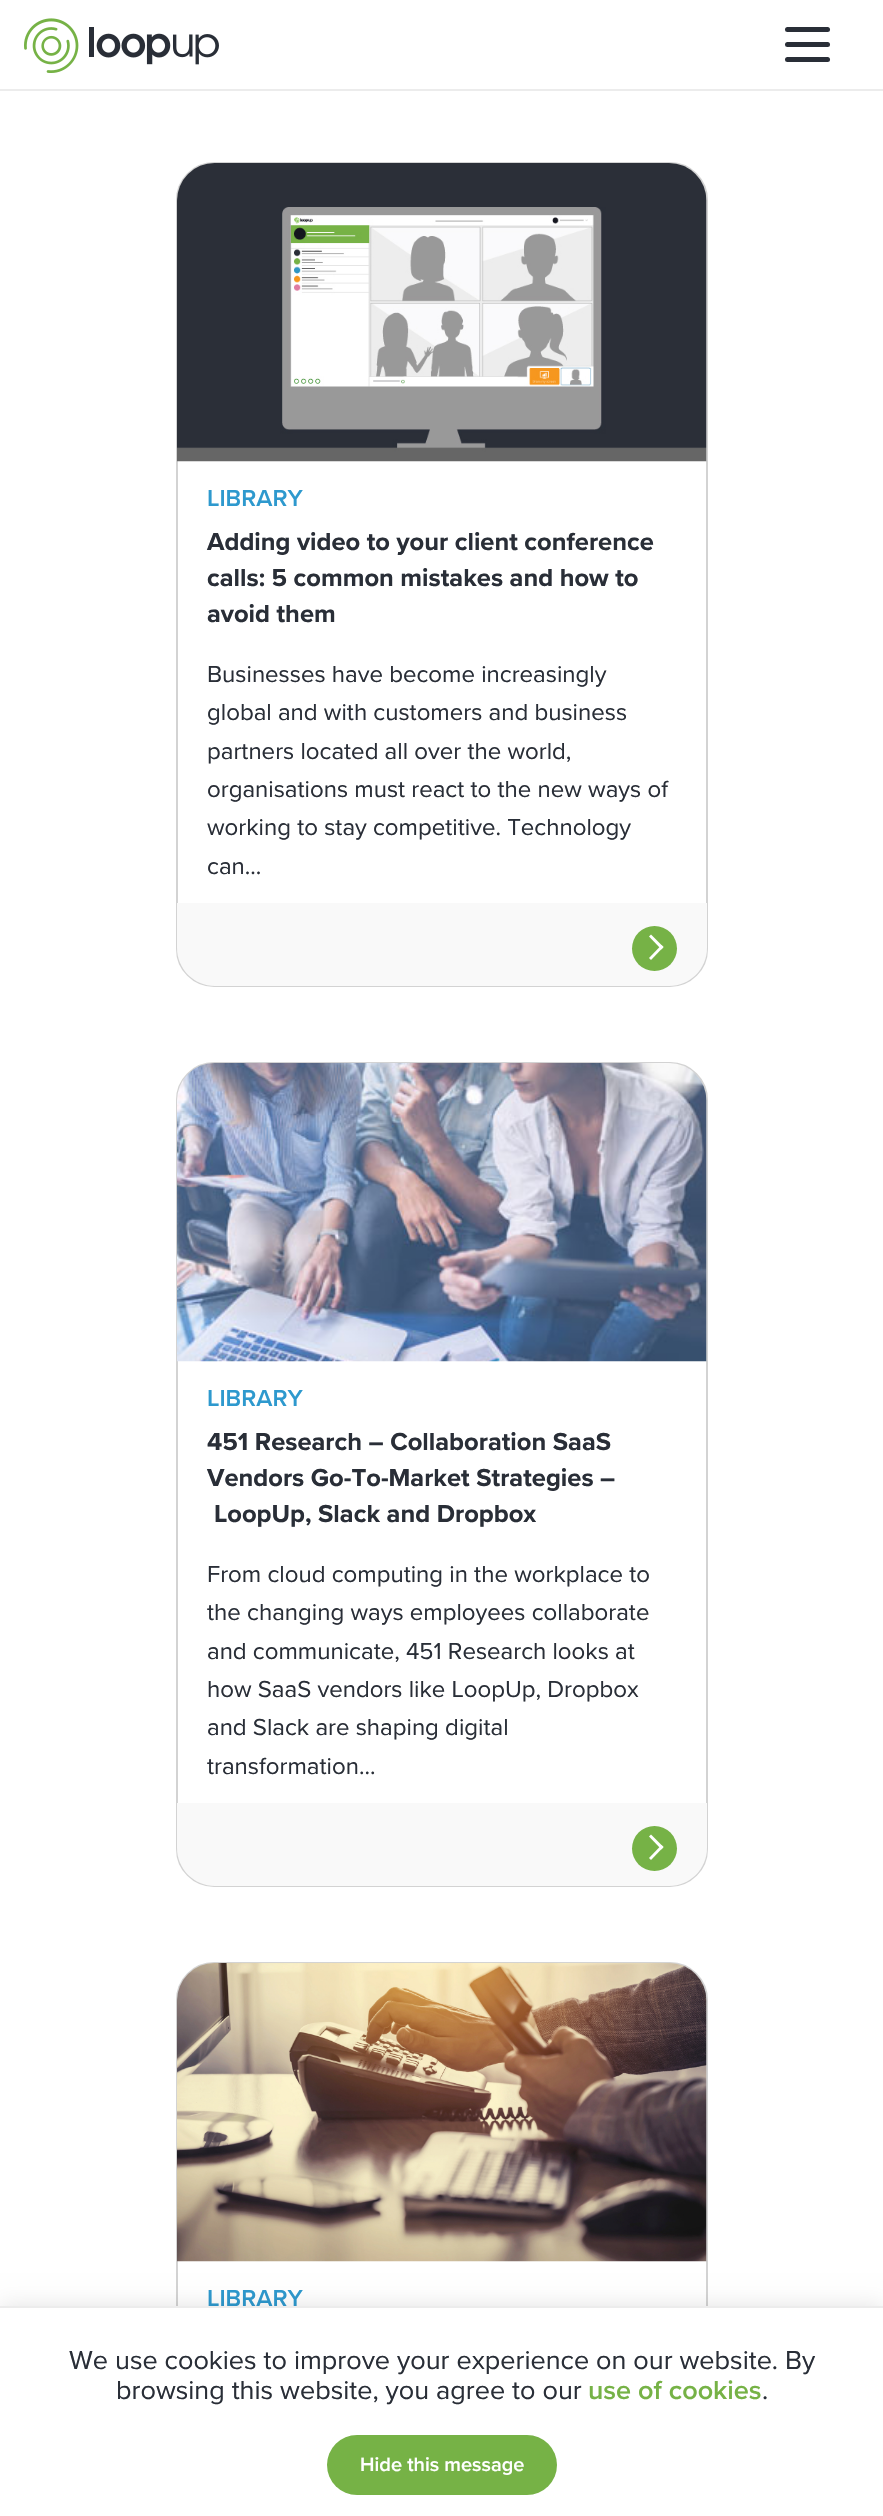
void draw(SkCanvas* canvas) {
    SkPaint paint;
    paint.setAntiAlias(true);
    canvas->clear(0xFFFFFFFF);
    paint.setColor(0xFFECECEC);
    canvas->drawRect(SkRect::MakeXYWH(0, 89, 883, 2), paint);
    canvas->drawImageRect(SkImages::DeferredFromEncodedData(SkData::MakeFromFileName("img1.png")), SkRect::MakeXYWH(24, 18, 195, 55), SkSamplingOptions());
    paint.setColor(0xFF292E37);
    canvas->drawRoundRect(SkRect::MakeXYWH(785, 27, 45, 5), 2.5f, 2.5f, paint);
    canvas->drawRoundRect(SkRect::MakeXYWH(785, 42, 45, 5), 2.5f, 2.5f, paint);
    canvas->drawRoundRect(SkRect::MakeXYWH(785, 57, 45, 5), 2.5f, 2.5f, paint);
    paint.setStyle(SkPaint::kStroke_Style);
    paint.setStrokeWidth(2);
    paint.setColor(0xFFD3D3D3);
    canvas->drawRoundRect(SkRect::MakeXYWH(177, 163, 530, 823), 37, 37, paint);
    canvas->drawImageRect(SkImages::DeferredFromEncodedData(SkData::MakeFromFileName("img2.png")), SkRect::MakeXYWH(177, 163, 530, 299), SkSamplingOptions());
    SkFont font1(fontMgr->matchFamilyStyle("Proxima Nova", SkFontStyle(600, SkFontStyle::kNormal_Width, SkFontStyle::kUpright_Slant)), 24);
    font1.setSubpixel(true);
    paint.setStyle(SkPaint::kFill_Style);
    paint.setColor(0xFF2E99CE);
    canvas->drawString("LIBRARY", 207, 506, font1, paint);
    SkFont font2(fontMgr->matchFamilyStyle("Proxima Nova", SkFontStyle::Bold()), 25.5f);
    font2.setSubpixel(true);
    paint.setColor(0xFF292E37);
    canvas->drawString("Adding video to your client conference", 207, 550, font2, paint);
    canvas->drawString("calls: 5 common mistakes and how to", 207, 586, font2, paint);
    canvas->drawString("avoid them", 207, 622, font2, paint);
    SkFont font3(fontMgr->matchFamilyStyle("Proxima Nova", SkFontStyle::Normal()), 24);
    font3.setSubpixel(true);
    canvas->drawString("Businesses have become increasingly", 207, 682, font3, paint);
    canvas->drawString("global and with customers and business", 207, 720, font3, paint);
    canvas->drawString("partners located all over the world,", 207, 759, font3, paint);
    canvas->drawString("organisations must react to the new ways of", 207, 797, font3, paint);
    canvas->drawString("working to stay competitive. Technology", 207, 835, font3, paint);
    canvas->drawString("can...", 207, 874, font3, paint);
    paint.setColor(0xFFF9F9F9);
    canvas->drawPath(SkPathBuilder().moveTo(177, 903).lineTo(707, 903).lineTo(707, 948).cubicTo(707, 969, 690, 986, 669, 986).lineTo(215, 986).cubicTo(194, 986, 177, 969, 177, 948).close().detach(), paint);
    paint.setColor(0xFF76B246);
    canvas->drawCircle(654.5f, 948.5f, 22.5f, paint);
    paint.setColor(0xFFFFFFFF);
    canvas->drawPath(SkPathBuilder().moveTo(651, 934.5f).lineTo(663.5f, 947).lineTo(661.5f, 949.5f).lineTo(649, 936.5f).close().detach(), paint);
    canvas->drawPath(SkPathBuilder().moveTo(661.5f, 945).lineTo(663.5f, 947).lineTo(651, 960).lineTo(649, 958).close().detach(), paint);
    paint.setStyle(SkPaint::kStroke_Style);
    paint.setColor(0xFFD3D3D3);
    canvas->drawRoundRect(SkRect::MakeXYWH(177, 1063, 530, 823), 37, 37, paint);
    canvas->drawImageRect(SkImages::DeferredFromEncodedData(SkData::MakeFromFileName("img3.png")), SkRect::MakeXYWH(177, 1063, 530, 299), SkSamplingOptions());
    paint.setStyle(SkPaint::kFill_Style);
    paint.setColor(0xFF2E99CE);
    canvas->drawString("LIBRARY", 207, 1406, font1, paint);
    paint.setColor(0xFF292E37);
    canvas->drawString("451 Research – Collaboration SaaS", 207, 1450, font2, paint);
    canvas->drawString("Vendors Go-To-Market Strategies –", 207, 1486, font2, paint);
    canvas->drawString("LoopUp, Slack and Dropbox", 214, 1522, font2, paint);
    canvas->drawString("From cloud computing in the workplace to", 207, 1582, font3, paint);
    canvas->drawString("the changing ways employees collaborate", 207, 1620, font3, paint);
    canvas->drawString("and communicate, 451 Research looks at", 207, 1659, font3, paint);
    canvas->drawString("how SaaS vendors like LoopUp, Dropbox", 207, 1697, font3, paint);
    canvas->drawString("and Slack are shaping digital", 207, 1735, font3, paint);
    canvas->drawString("transformation...", 207, 1774, font3, paint);
    paint.setColor(0xFFF9F9F9);
    canvas->drawPath(SkPathBuilder().moveTo(177, 1803).lineTo(707, 1803).lineTo(707, 1848).cubicTo(707, 1869, 690, 1886, 669, 1886).lineTo(215, 1886).cubicTo(194, 1886, 177, 1869, 177, 1848).close().detach(), paint);
    paint.setColor(0xFF76B246);
    canvas->drawCircle(654.5f, 1848.5f, 22.5f, paint);
    paint.setColor(0xFFFFFFFF);
    canvas->drawPath(SkPathBuilder().moveTo(651, 1834.5f).lineTo(663.5f, 1847).lineTo(661.5f, 1849.5f).lineTo(649, 1836.5f).close().detach(), paint);
    canvas->drawPath(SkPathBuilder().moveTo(661.5f, 1845).lineTo(663.5f, 1847).lineTo(651, 1860).lineTo(649, 1858).close().detach(), paint);
    paint.setStyle(SkPaint::kStroke_Style);
    paint.setColor(0xFFD3D3D3);
    canvas->drawRoundRect(SkRect::MakeXYWH(177, 1963, 530, 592), 37, 37, paint);
    canvas->drawImageRect(SkImages::DeferredFromEncodedData(SkData::MakeFromFileName("img4.png")), SkRect::MakeXYWH(177, 1963, 530, 299), SkSamplingOptions());
    paint.setStyle(SkPaint::kFill_Style);
    paint.setColor(0xFF2E99CE);
    canvas->drawString("LIBRARY", 207, 2306, font1, paint);
    paint.setColor(0x1C000000);
    paint.setMaskFilter(SkMaskFilter::MakeBlur(kNormal_SkBlurStyle, 11));
    canvas->drawRect(SkRect::MakeXYWH(0, 2306, 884, 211), paint);
    paint.setMaskFilter(nullptr);
    paint.setColor(0xFFFFFFFF);
    canvas->drawRect(SkRect::MakeXYWH(0, 2308, 883, 208), paint);
    paint.setColor(0xFFECECEC);
    canvas->drawRect(SkRect::MakeXYWH(0, 2306, 883, 2), paint);
    SkFont font4(fontMgr->matchFamilyStyle("Proxima Nova", SkFontStyle::Normal()), 27);
    font4.setSubpixel(true);
    paint.setColor(0xFF292E37);
    canvas->drawString("We use cookies to improve your experience on our website. By", 69, 2369, font4, paint);
    canvas->drawString("browsing this website, you agree to our", 116, 2399, font4, paint);
    SkFont font5(fontMgr->matchFamilyStyle("Proxima Nova", SkFontStyle(600, SkFontStyle::kNormal_Width, SkFontStyle::kUpright_Slant)), 27);
    font5.setSubpixel(true);
    paint.setColor(0xFF76B246);
    canvas->drawString("use of cookies", 588, 2399, font5, paint);
    paint.setColor(0xFF292E37);
    canvas->drawString(".", 762, 2399, font4, paint);
    paint.setColor(0xFF76B246);
    canvas->drawRoundRect(SkRect::MakeXYWH(327, 2435, 230, 60), 30, 30, paint);
    SkFont font6(fontMgr->matchFamilyStyle("Proxima Nova", SkFontStyle(600, SkFontStyle::kNormal_Width, SkFontStyle::kUpright_Slant)), 20);
    font6.setSubpixel(true);
    paint.setColor(0xFFFFFFFF);
    canvas->drawString("Hide this message", 360, 2471, font6, paint);
}
